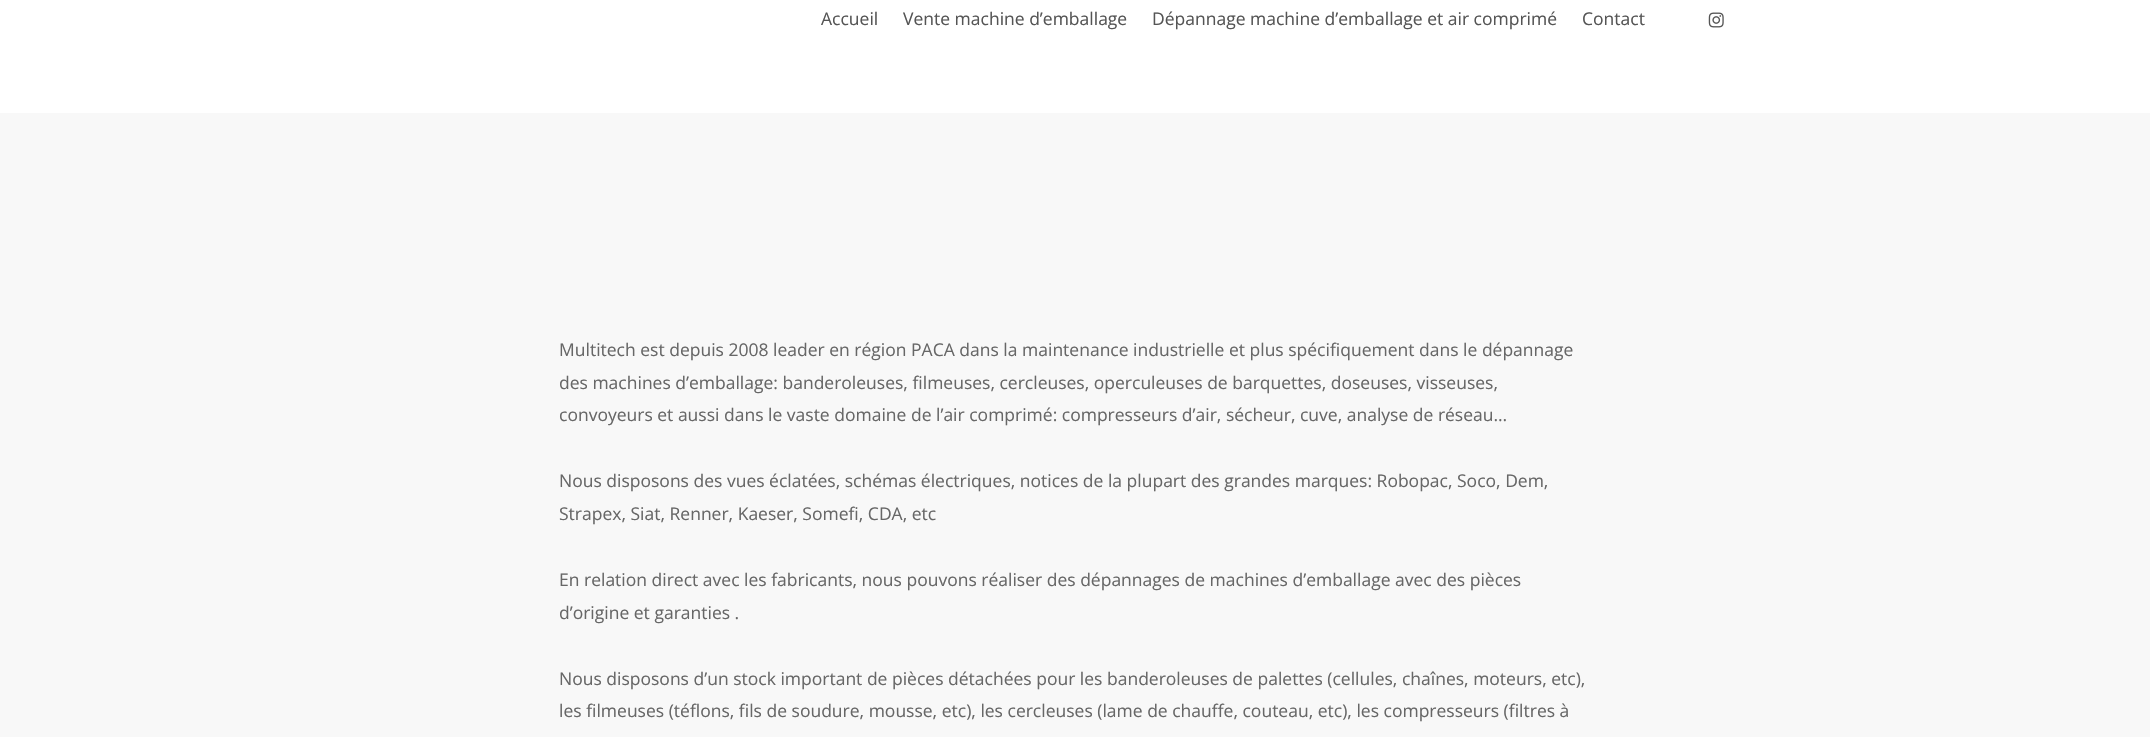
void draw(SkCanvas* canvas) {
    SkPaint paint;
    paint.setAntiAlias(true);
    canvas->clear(0xFFFFFFFF);
    SkFont font1(fontMgr->matchFamilyStyle("Open Sans", SkFontStyle::Normal()), 17.5f);
    font1.setSubpixel(true);
    paint.setColor(0xFF555555);
    canvas->drawString("Accueil", 821, 25, font1, paint);
    canvas->drawString("Vente machine d’emballage", 903, 25, font1, paint);
    canvas->drawString("Dépannage machine d’emballage et air comprimé", 1152, 25, font1, paint);
    canvas->drawString("Contact", 1582, 25, font1, paint);
    canvas->drawImageRect(SkImages::DeferredFromEncodedData(SkData::MakeFromFileName("img1.png")), SkRect::MakeXYWH(1708, 12, 16, 16), SkSamplingOptions());
    paint.setColor(0xFFF8F8F8);
    canvas->drawRect(SkRect::MakeXYWH(0, 113, 2150, 624), paint);
    paint.setColor(0xFF676767);
    canvas->drawString("Multitech est depuis 2008 leader en région PACA dans la maintenance industrielle et plus spécifiquement dans le dépannage", 559, 356, font1, paint);
    canvas->drawString("des machines d’emballage: banderoleuses, filmeuses, cercleuses, operculeuses de barquettes, doseuses, visseuses,", 559, 389, font1, paint);
    canvas->drawString("convoyeurs et aussi dans le vaste domaine de l’air comprimé: compresseurs d’air, sécheur, cuve, analyse de réseau…", 559, 421, font1, paint);
    canvas->drawString("Nous disposons des vues éclatées, schémas électriques, notices de la plupart des grandes marques: Robopac, Soco, Dem,", 559, 487, font1, paint);
    canvas->drawString("Strapex, Siat, Renner, Kaeser, Somefi, CDA, etc", 559, 520, font1, paint);
    canvas->drawString("En relation direct avec les fabricants, nous pouvons réaliser des dépannages de machines d’emballage avec des pièces", 559, 586, font1, paint);
    canvas->drawString("d’origine et garanties .", 559, 619, font1, paint);
    canvas->drawString("Nous disposons d’un stock important de pièces détachées pour les banderoleuses de palettes (cellules, chaînes, moteurs, etc),", 559, 685, font1, paint);
    canvas->drawString("les filmeuses (téflons, fils de soudure, mousse, etc), les cercleuses (lame de chauffe, couteau, etc), les compresseurs (filtres à", 559, 717, font1, paint);
}
